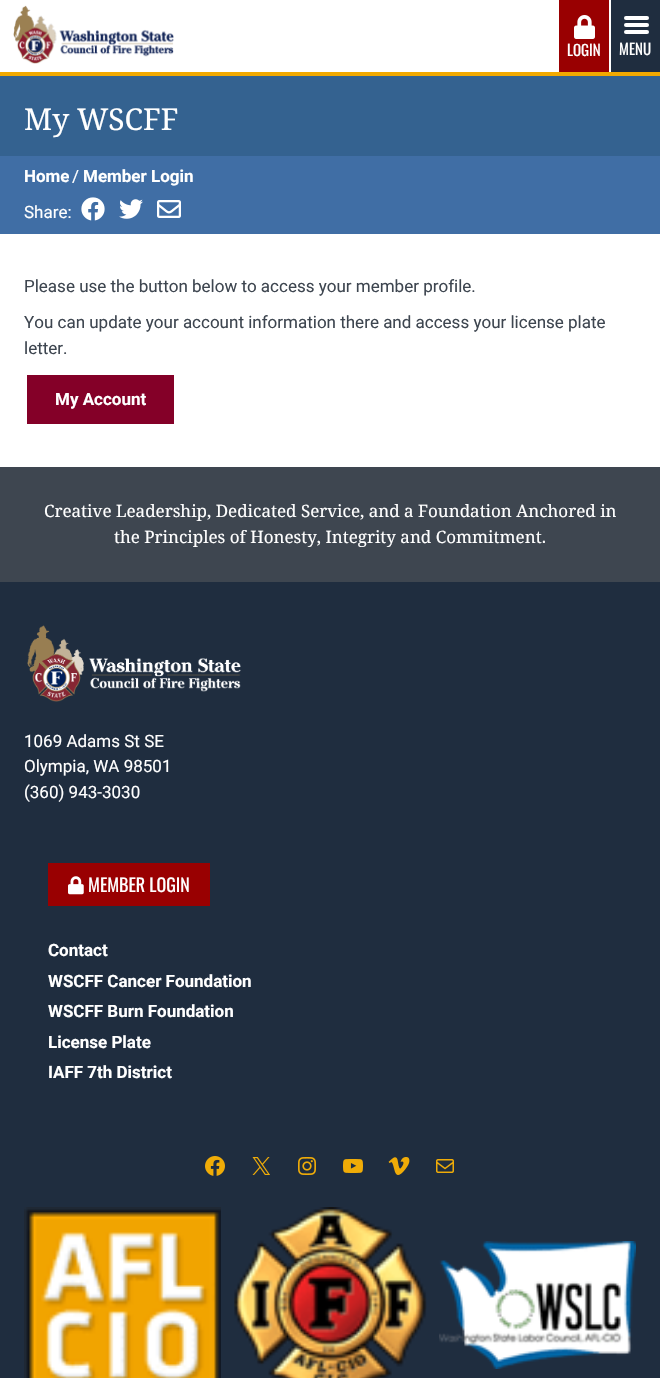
void draw(SkCanvas* canvas) {
    SkPaint paint;
    paint.setAntiAlias(true);
    canvas->clear(0xFFFFFFFF);
    paint.setColor(0xFFF2A900);
    canvas->drawRect(SkRect::MakeXYWH(0, 72, 660, 4), paint);
    canvas->drawImageRect(SkImages::DeferredFromEncodedData(SkData::MakeFromFileName("img1.png")), SkRect::MakeXYWH(13, 5, 161, 59), SkSamplingOptions());
    paint.setColor(0xFF990001);
    canvas->drawRect(SkRect::MakeXYWH(559, 0, 50, 72), paint);
    canvas->drawImageRect(SkImages::DeferredFromEncodedData(SkData::MakeFromFileName("img2.png")), SkRect::MakeXYWH(574, 15, 21, 24), SkSamplingOptions());
    SkFont font1(fontMgr->matchFamilyStyle("Oswald", SkFontStyle::Normal()), 15);
    font1.setSubpixel(true);
    paint.setColor(0xFFFFFFFF);
    canvas->drawString("LOGIN", 567, 56, font1, paint);
    paint.setColor(0xFF1F2D3F);
    canvas->drawRect(SkRect::MakeXYWH(611, 0, 49, 72), paint);
    paint.setColor(0xFFFFFFFF);
    canvas->drawRoundRect(SkRect::MakeXYWH(624, 16, 25, 4), 2, 2, paint);
    canvas->drawRoundRect(SkRect::MakeXYWH(624, 23, 25, 4), 2, 2, paint);
    canvas->drawRoundRect(SkRect::MakeXYWH(624, 30, 25, 4), 2, 2, paint);
    canvas->drawString("MENU", 619, 55, font1, paint);
    paint.setColor(0xFF346290);
    canvas->drawRect(SkRect::MakeXYWH(0, 76, 660, 80), paint);
    SkFont font2(fontMgr->matchFamilyStyle("Droid Serif", SkFontStyle::Normal()), 30);
    font2.setSubpixel(true);
    paint.setColor(0xFFFFFFFF);
    canvas->drawString("My WSCFF", 24, 130, font2, paint);
    paint.setColor(0xFF406EA5);
    canvas->drawRect(SkRect::MakeXYWH(0, 156, 660, 78), paint);
    SkFont font3(fontMgr->matchFamilyStyle("Roboto", SkFontStyle::Bold()), 17);
    font3.setSubpixel(true);
    paint.setColor(0xFFFFFFFF);
    canvas->drawString("Home", 24, 182, font3, paint);
    SkFont font4(fontMgr->matchFamilyStyle("Roboto", SkFontStyle::Normal()), 17);
    font4.setSubpixel(true);
    canvas->drawString("/", 72, 182, font4, paint);
    canvas->drawString("Member Login", 83, 182, font3, paint);
    canvas->drawString("Share:", 24, 218, font4, paint);
    canvas->drawImageRect(SkImages::DeferredFromEncodedData(SkData::MakeFromFileName("img3.png")), SkRect::MakeXYWH(81, 197, 24, 24), SkSamplingOptions());
    canvas->drawImageRect(SkImages::DeferredFromEncodedData(SkData::MakeFromFileName("img4.png")), SkRect::MakeXYWH(119, 199, 24, 20), SkSamplingOptions());
    canvas->drawImageRect(SkImages::DeferredFromEncodedData(SkData::MakeFromFileName("img5.png")), SkRect::MakeXYWH(157, 200, 24, 18), SkSamplingOptions());
    paint.setColor(0xFF3E4650);
    canvas->drawString("Please use the button below to access your member profile.", 24, 292, font4, paint);
    canvas->drawString("You can update your account information there and access your license plate", 24, 328, font4, paint);
    canvas->drawString("letter.", 24, 354, font4, paint);
    paint.setColor(0xFF840028);
    canvas->drawRect(SkRect::MakeXYWH(27, 375, 147, 49), paint);
    paint.setColor(0xFFFFFFFF);
    canvas->drawString("My Account", 55, 405, font3, paint);
    paint.setColor(0xFF3E4650);
    canvas->drawRect(SkRect::MakeXYWH(0, 467, 660, 115), paint);
    SkFont font5(fontMgr->matchFamilyStyle("Droid Serif", SkFontStyle::Normal()), 17);
    font5.setSubpixel(true);
    paint.setColor(0xFFFFFFFF);
    canvas->drawString("Creative Leadership, Dedicated Service, and a Foundation Anchored in", 44, 517, font5, paint);
    canvas->drawString("the Principles of Honesty, Integrity and Commitment.", 114, 543, font5, paint);
    paint.setColor(0xFF1F2D3F);
    canvas->drawRect(SkRect::MakeXYWH(0, 582, 660, 796), paint);
    canvas->drawImageRect(SkImages::DeferredFromEncodedData(SkData::MakeFromFileName("img6.png")), SkRect::MakeXYWH(27, 625, 214, 77), SkSamplingOptions());
    paint.setColor(0xFFFFFFFF);
    canvas->drawString("1069 Adams St SE", 24, 747, font4, paint);
    canvas->drawString("Olympia, WA 98501", 24, 772, font4, paint);
    canvas->drawString("(360) 943-3030", 24, 798, font4, paint);
    paint.setColor(0xFF990001);
    canvas->drawRect(SkRect::MakeXYWH(48, 863, 162, 43), paint);
    canvas->drawImageRect(SkImages::DeferredFromEncodedData(SkData::MakeFromFileName("img7.png")), SkRect::MakeXYWH(68, 876, 16, 19), SkSamplingOptions());
    SkFont font6(fontMgr->matchFamilyStyle("Oswald", SkFontStyle::Normal()), 18);
    font6.setSubpixel(true);
    paint.setColor(0xFFFFFFFF);
    canvas->drawString("MEMBER LOGIN", 88, 892, font6, paint);
    canvas->drawString("Contact", 48, 956, font3, paint);
    canvas->drawString("WSCFF Cancer Foundation", 48, 987, font3, paint);
    canvas->drawString("WSCFF Burn Foundation", 48, 1017, font3, paint);
    canvas->drawString("License Plate", 48, 1048, font3, paint);
    canvas->drawString("IAFF 7th District", 48, 1078, font3, paint);
    canvas->drawImageRect(SkImages::DeferredFromEncodedData(SkData::MakeFromFileName("img8.png")), SkRect::MakeXYWH(205, 1156, 20, 20), SkSamplingOptions());
    canvas->drawImageRect(SkImages::DeferredFromEncodedData(SkData::MakeFromFileName("img9.png")), SkRect::MakeXYWH(252, 1157, 18, 18), SkSamplingOptions());
    canvas->drawImageRect(SkImages::DeferredFromEncodedData(SkData::MakeFromFileName("img10.png")), SkRect::MakeXYWH(298, 1157, 18, 18), SkSamplingOptions());
    canvas->drawImageRect(SkImages::DeferredFromEncodedData(SkData::MakeFromFileName("img11.png")), SkRect::MakeXYWH(343, 1159, 20, 14), SkSamplingOptions());
    canvas->drawImageRect(SkImages::DeferredFromEncodedData(SkData::MakeFromFileName("img12.png")), SkRect::MakeXYWH(388, 1157, 22, 18), SkSamplingOptions());
    canvas->drawImageRect(SkImages::DeferredFromEncodedData(SkData::MakeFromFileName("img13.png")), SkRect::MakeXYWH(436, 1159, 18, 14), SkSamplingOptions());
    canvas->drawImageRect(SkImages::DeferredFromEncodedData(SkData::MakeFromFileName("img14.png")), SkRect::MakeXYWH(24, 1207, 197, 171), SkSamplingOptions());
    canvas->drawImageRect(SkImages::DeferredFromEncodedData(SkData::MakeFromFileName("img15.png")), SkRect::MakeXYWH(234, 1207, 193, 171), SkSamplingOptions());
    canvas->drawImageRect(SkImages::DeferredFromEncodedData(SkData::MakeFromFileName("img16.png")), SkRect::MakeXYWH(439, 1241, 197, 128), SkSamplingOptions());
}
